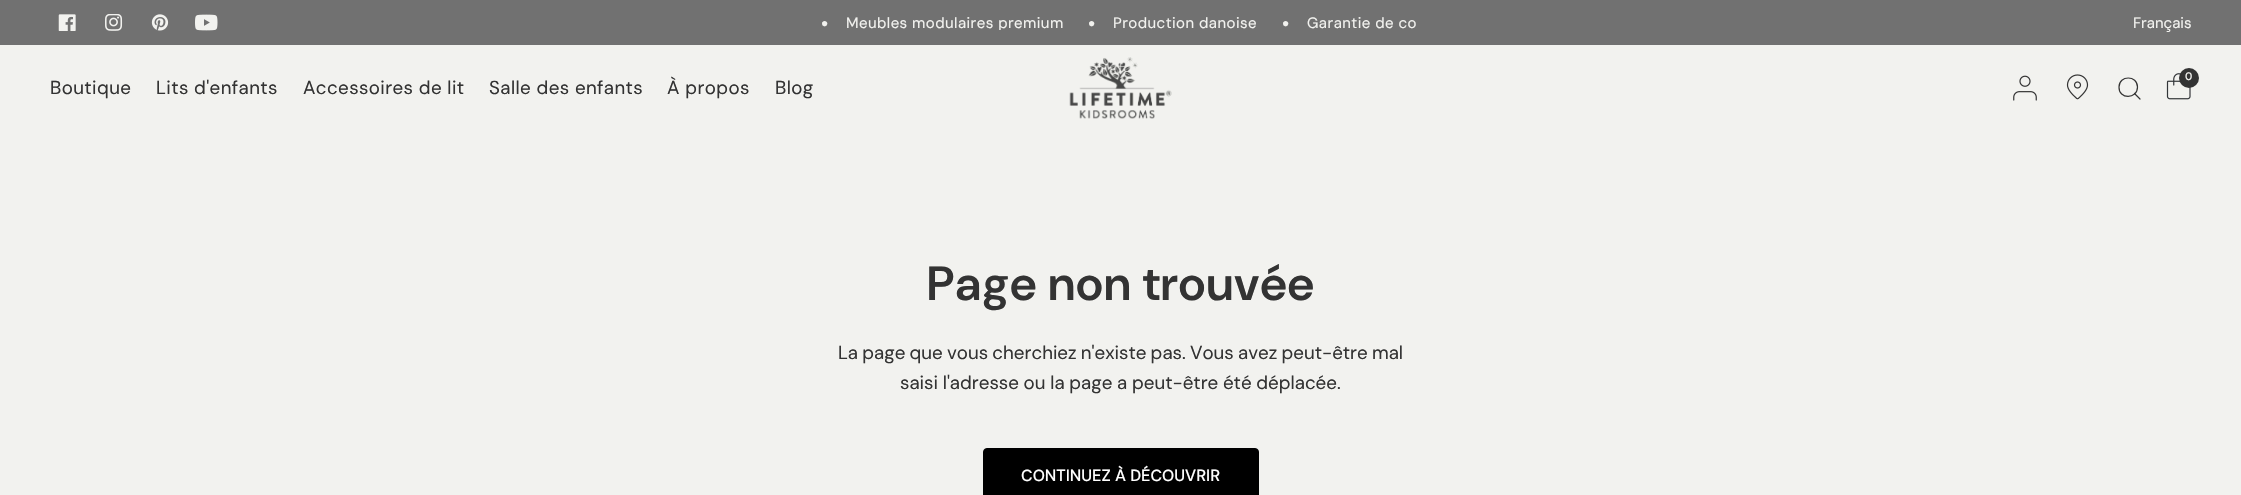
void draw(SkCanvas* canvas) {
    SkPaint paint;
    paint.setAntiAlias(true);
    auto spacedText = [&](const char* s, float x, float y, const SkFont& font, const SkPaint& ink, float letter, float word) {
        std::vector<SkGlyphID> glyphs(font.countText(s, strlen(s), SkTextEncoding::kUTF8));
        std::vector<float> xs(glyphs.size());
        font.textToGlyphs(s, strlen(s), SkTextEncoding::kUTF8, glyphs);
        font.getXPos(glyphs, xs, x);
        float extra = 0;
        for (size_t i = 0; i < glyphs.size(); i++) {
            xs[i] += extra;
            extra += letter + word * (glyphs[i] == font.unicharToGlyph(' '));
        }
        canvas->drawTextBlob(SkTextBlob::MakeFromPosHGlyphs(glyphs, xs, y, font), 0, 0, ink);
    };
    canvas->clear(0xFFF2F2EF);
    paint.setColor(0xFF717171);
    canvas->drawRect(SkRect::MakeXYWH(0, 0, 2241, 45), paint);
    canvas->drawImageRect(SkImages::DeferredFromEncodedData(SkData::MakeFromFileName("img1.png")), SkRect::MakeXYWH(58, 14, 18, 17), SkSamplingOptions());
    canvas->drawImageRect(SkImages::DeferredFromEncodedData(SkData::MakeFromFileName("img2.png")), SkRect::MakeXYWH(105, 14, 18, 17), SkSamplingOptions());
    canvas->drawImageRect(SkImages::DeferredFromEncodedData(SkData::MakeFromFileName("img3.png")), SkRect::MakeXYWH(151, 14, 18, 17), SkSamplingOptions());
    canvas->drawImageRect(SkImages::DeferredFromEncodedData(SkData::MakeFromFileName("img4.png")), SkRect::MakeXYWH(195, 14, 23, 17), SkSamplingOptions());
    SkFont font1(fontMgr->matchFamilyStyle("Liberation Sans", SkFontStyle::Normal()), 12);
    font1.setSubpixel(true);
    paint.setColor(0xFFF2F2EF);
    spacedText("●", 821, 27, font1, paint, 0.45f, 0);
    canvas->save();
    canvas->clipRect(SkRect::MakeXYWH(821, 15, 600, 15));
    SkFont font2(fontMgr->matchFamilyStyle("DM Sans", SkFontStyle::Normal()), 15);
    font2.setSubpixel(true);
    spacedText("Meubles modulaires premium", 846, 28, font2, paint, 0.45f, 0);
    canvas->restore();
    spacedText("●", 1088, 27, font1, paint, 0.45f, 0);
    spacedText("Production danoise", 1113, 28, font2, paint, 0.45f, 0);
    spacedText("●", 1282, 27, font1, paint, 0.45f, 0);
    spacedText("Garantie de co", 1307, 28, font2, paint, 0.45f, 0);
    canvas->drawString("Français", 2133, 28, font2, paint);
    SkFont font3(fontMgr->matchFamilyStyle("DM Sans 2", SkFontStyle::Normal()), 18.75f);
    font3.setSubpixel(true);
    paint.setColor(0xFF333333);
    spacedText("Boutique", 50, 94, font3, paint, 0.4f, 0);
    spacedText("Lits d'enfants", 156, 94, font3, paint, 0.4f, 0);
    spacedText("Accessoires de lit", 303, 94, font3, paint, 0.4f, 0);
    spacedText("Salle des enfants", 489, 94, font3, paint, 0.4f, 0);
    spacedText("À propos", 667, 94, font3, paint, 0.4f, 0);
    spacedText("Blog", 775, 94, font3, paint, 0.4f, 0);
    canvas->drawImageRect(SkImages::DeferredFromEncodedData(SkData::MakeFromFileName("img5.png")), SkRect::MakeXYWH(1069, 57, 103, 62), SkSamplingOptions());
    canvas->drawImageRect(SkImages::DeferredFromEncodedData(SkData::MakeFromFileName("img6.png")), SkRect::MakeXYWH(2013, 75, 24, 26), SkSamplingOptions());
    canvas->drawImageRect(SkImages::DeferredFromEncodedData(SkData::MakeFromFileName("img7.png")), SkRect::MakeXYWH(2066, 74, 23, 26), SkSamplingOptions());
    paint.setStyle(SkPaint::kStroke_Style);
    paint.setStrokeWidth(1.2f);
    paint.setStrokeCap(SkPaint::kRound_Cap);
    paint.setStrokeJoin(SkPaint::kRound_Join);
    canvas->drawPath(SkPathBuilder().moveTo(2134.5f, 93.5f).lineTo(2140, 99).moveTo(2137.5f, 87).cubicTo(2137.5f, 99.5f, 2118.5f, 99.5f, 2119, 87).cubicTo(2119, 75, 2137.5f, 75, 2137.5f, 87).close().detach(), paint);
    canvas->drawImageRect(SkImages::DeferredFromEncodedData(SkData::MakeFromFileName("img8.png")), SkRect::MakeXYWH(2166, 73, 25, 27), SkSamplingOptions());
    paint.setStyle(SkPaint::kFill_Style);
    canvas->drawCircle(2189, 78, 10, paint);
    SkFont font4(fontMgr->matchFamilyStyle("DM Sans", SkFontStyle(500, SkFontStyle::kNormal_Width, SkFontStyle::kUpright_Slant)), 11);
    font4.setSubpixel(true);
    paint.setColor(0xFFF2F2EF);
    canvas->drawString("0", 2185, 80, font4, paint);
    SkFont font5(fontMgr->matchFamilyStyle("DM Sans", SkFontStyle(600, SkFontStyle::kNormal_Width, SkFontStyle::kUpright_Slant)), 48);
    font5.setSubpixel(true);
    paint.setColor(0xFF333333);
    spacedText("Page non trouvée", 927, 300, font5, paint, 1, 0);
    spacedText("La page que vous cherchiez n'existe pas. Vous avez peut-être mal", 838, 359, font3, paint, 0, -0.75f);
    spacedText("saisi l'adresse ou la page a peut-être été déplacée.", 900, 389, font3, paint, 0, -0.25f);
    paint.setColor(0xFF000000);
    canvas->drawRoundRect(SkRect::MakeXYWH(983.5f, 448.5f, 275, 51), 3.5f, 3.5f, paint);
    paint.setStyle(SkPaint::kStroke_Style);
    paint.setStrokeWidth(1);
    paint.setStrokeCap(SkPaint::kButt_Cap);
    paint.setStrokeJoin(SkPaint::kMiter_Join);
    canvas->drawRoundRect(SkRect::MakeXYWH(983.5f, 448.5f, 275, 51), 3.5f, 3.5f, paint);
    SkFont font6(fontMgr->matchFamilyStyle("DM Sans", SkFontStyle(500, SkFontStyle::kNormal_Width, SkFontStyle::kUpright_Slant)), 16.25f);
    font6.setSubpixel(true);
    paint.setStyle(SkPaint::kFill_Style);
    paint.setColor(0xFFFFFFFF);
    canvas->drawString("CONTINUEZ À DÉCOUVRIR", 1021, 481, font6, paint);
}
